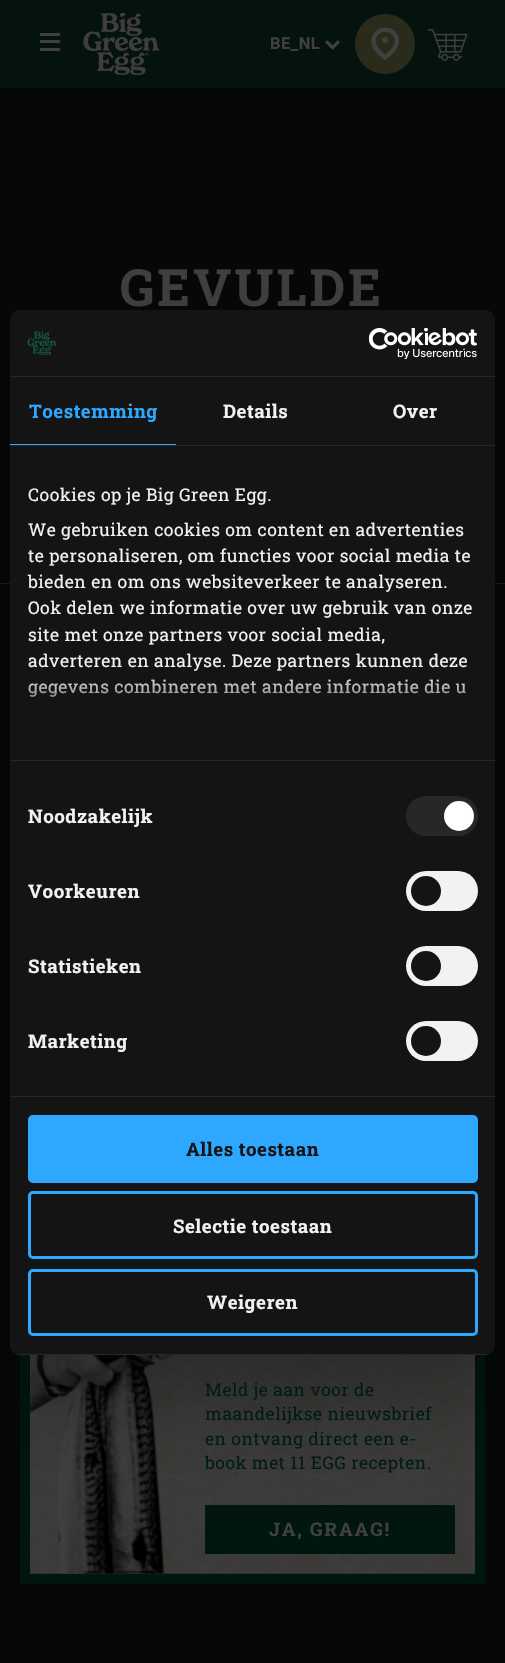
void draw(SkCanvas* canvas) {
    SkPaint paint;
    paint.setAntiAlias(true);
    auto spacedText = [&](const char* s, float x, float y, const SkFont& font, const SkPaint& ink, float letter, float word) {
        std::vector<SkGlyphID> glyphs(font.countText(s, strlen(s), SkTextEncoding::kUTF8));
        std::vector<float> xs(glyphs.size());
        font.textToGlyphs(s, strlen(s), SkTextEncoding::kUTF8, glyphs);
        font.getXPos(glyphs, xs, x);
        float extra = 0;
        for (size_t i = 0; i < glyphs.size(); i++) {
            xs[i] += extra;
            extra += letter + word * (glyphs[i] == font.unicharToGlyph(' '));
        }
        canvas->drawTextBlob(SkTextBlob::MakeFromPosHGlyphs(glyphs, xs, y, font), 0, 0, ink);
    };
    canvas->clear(0xFF060807);
    paint.setColor(0xFF04130E);
    canvas->drawRect(SkRect::MakeXYWH(0, 0, 505, 88), paint);
    paint.setColor(0xFF404040);
    canvas->drawRect(SkRect::MakeXYWH(40, 33, 20, 3), paint);
    canvas->drawRect(SkRect::MakeXYWH(40, 40, 20, 3), paint);
    canvas->drawRect(SkRect::MakeXYWH(40, 48, 20, 3), paint);
    canvas->drawImageRect(SkImages::DeferredFromEncodedData(SkData::MakeFromFileName("img1.png")), SkRect::MakeXYWH(83, 13, 77, 62), SkSamplingOptions());
    SkFont font1(fontMgr->matchFamilyStyle("Roboto", SkFontStyle::Bold()), 16.5f);
    font1.setSubpixel(true);
    spacedText("BE_NL", 270, 49, font1, paint, 0.5f, 0);
    canvas->drawImageRect(SkImages::DeferredFromEncodedData(SkData::MakeFromFileName("img2.png")), SkRect::MakeXYWH(325, 40, 15, 10), SkSamplingOptions());
    paint.setColor(0xFF2A2B1A);
    canvas->drawCircle(385, 44, 30, paint);
    canvas->drawImageRect(SkImages::DeferredFromEncodedData(SkData::MakeFromFileName("img3.png")), SkRect::MakeXYWH(371, 28, 28, 32), SkSamplingOptions());
    canvas->drawImageRect(SkImages::DeferredFromEncodedData(SkData::MakeFromFileName("img4.png")), SkRect::MakeXYWH(427, 29, 41, 32), SkSamplingOptions());
    SkFont font2(fontMgr->matchFamilyStyle("Roboto Slab", SkFontStyle::Bold()), 51.25f);
    font2.setSubpixel(true);
    paint.setColor(0xFF404040);
    spacedText("GEVULDE", 120, 306, font2, paint, 3, 0);
    paint.setColor(0xFF1D1F1E);
    canvas->drawRect(SkRect::MakeXYWH(0, 583, 10, 1), paint);
    canvas->drawRect(SkRect::MakeXYWH(495, 583, 10, 1), paint);
    paint.setColor(0xFF00160F);
    canvas->drawRect(SkRect::MakeXYWH(20, 1355, 465, 229), paint);
    canvas->drawImageRect(SkImages::DeferredFromEncodedData(SkData::MakeFromFileName("img8.png")), SkRect::MakeXYWH(30, 1355, 445, 219), SkSamplingOptions());
    canvas->drawImageRect(SkImages::DeferredFromEncodedData(SkData::MakeFromFileName("img7.png")), SkRect::MakeXYWH(30, 1355, 141, 219), SkSamplingOptions());
    canvas->drawRect(SkRect::MakeXYWH(205, 1505, 250, 49), paint);
    paint.setColor(0x4D000000);
    paint.setMaskFilter(SkMaskFilter::MakeBlur(kNormal_SkBlurStyle, 42.5f));
    canvas->drawRoundRect(SkRect::MakeXYWH(10, 350, 485, 1045), 10, 10, paint);
    paint.setMaskFilter(nullptr);
    paint.setColor(0xFF141414);
    canvas->drawRoundRect(SkRect::MakeXYWH(10, 310, 485, 1045), 10, 10, paint);
    paint.setColor(0xFF272727);
    canvas->drawRect(SkRect::MakeXYWH(10, 376, 485, 1), paint);
    canvas->drawImageRect(SkImages::DeferredFromEncodedData(SkData::MakeFromFileName("img5.png")), SkRect::MakeXYWH(27, 331, 30, 24), SkSamplingOptions());
    canvas->drawImageRect(SkImages::DeferredFromEncodedData(SkData::MakeFromFileName("img6.png")), SkRect::MakeXYWH(369, 328, 108, 31), SkSamplingOptions());
    canvas->drawRect(SkRect::MakeXYWH(10, 445, 485, 1), paint);
    paint.setColor(0xFF2EA7FF);
    canvas->drawRect(SkRect::MakeXYWH(10, 444, 166, 1), paint);
    SkFont font3(fontMgr->matchFamilyStyle("Roboto Slab", SkFontStyle::Bold()), 18.75f);
    font3.setSubpixel(true);
    spacedText("Toestemming", 29, 418, font3, paint, 0.5f, 0);
    paint.setColor(0xFFF2F2F2);
    spacedText("Details", 223, 418, font3, paint, 0.5f, 0);
    spacedText("Over", 393, 418, font3, paint, 0.5f, 0);
    paint.setColor(0xFF272727);
    canvas->drawRect(SkRect::MakeXYWH(10, 760, 485, 1), paint);
    SkFont font4(fontMgr->matchFamilyStyle("Roboto Slab", SkFontStyle::Normal()), 17.5f);
    font4.setSubpixel(true);
    paint.setColor(0xFFF2F2F2);
    spacedText("Cookies op je Big Green Egg.", 28, 501, font4, paint, 0.5f, 0);
    spacedText("We gebruiken cookies om content en advertenties", 28, 536, font4, paint, 0.5f, 0);
    spacedText("te personaliseren, om functies voor social media te", 28, 562, font4, paint, 0.5f, 0);
    spacedText("bieden en om ons websiteverkeer te analyseren.", 28, 588, font4, paint, 0.5f, 0);
    spacedText("Ook delen we informatie over uw gebruik van onze", 28, 614, font4, paint, 0.5f, 0);
    spacedText("site met onze partners voor social media,", 28, 641, font4, paint, 0.5f, 0);
    spacedText("adverteren en analyse. Deze partners kunnen deze", 28, 667, font4, paint, 0.5f, 0);
    spacedText("gegevens combineren met andere informatie die u", 28, 693, font4, paint, 0.5f, 0);
    {
        const SkColor colors[] = {0xFF141414, 0xCC141414, 0x00141414};
        const float stops[] = {0, 0.5f, 1};
        const SkPoint ends[] = {{245, 760}, {245, 673}};
        paint.setShader(SkGradientShader::MakeLinear(ends, colors, stops, 3, SkTileMode::kClamp));
        paint.setAlpha(255);
    }
    canvas->drawRect(SkRect::MakeXYWH(28, 679, 438, 18), paint);
    paint.setShader(nullptr);
    paint.setColor(0xFF272727);
    canvas->drawRect(SkRect::MakeXYWH(10, 1096, 485, 1), paint);
    paint.setColor(0xFFF2F2F2);
    spacedText("Noodzakelijk", 28, 823, font3, paint, 0.5f, 0);
    paint.setColor(0xFF272727);
    canvas->drawRoundRect(SkRect::MakeXYWH(406, 796, 72, 40), 20, 20, paint);
    paint.setColor(0xFFFFFFFF);
    canvas->drawCircle(459, 816, 15, paint);
    paint.setColor(0xFFF2F2F2);
    spacedText("Voorkeuren", 28, 898, font3, paint, 0.5f, 0);
    canvas->drawRoundRect(SkRect::MakeXYWH(406, 871, 72, 40), 20, 20, paint);
    paint.setColor(0xFF141414);
    canvas->drawCircle(426, 891, 15, paint);
    paint.setColor(0xFFF2F2F2);
    spacedText("Statistieken", 28, 973, font3, paint, 0.5f, 0);
    canvas->drawRoundRect(SkRect::MakeXYWH(406, 946, 72, 40), 20, 20, paint);
    paint.setColor(0xFF141414);
    canvas->drawCircle(426, 966, 15, paint);
    paint.setColor(0xFFF2F2F2);
    spacedText("Marketing", 28, 1048, font3, paint, 0.5f, 0);
    canvas->drawRoundRect(SkRect::MakeXYWH(406, 1021, 72, 40), 20, 20, paint);
    paint.setColor(0xFF141414);
    canvas->drawCircle(426, 1041, 15, paint);
    canvas->save();
    canvas->clipPath(SkPathBuilder().moveTo(20, 310).lineTo(485, 310).cubicTo(490.5f, 310, 495, 314.5f, 495, 320).lineTo(495, 1345).cubicTo(495, 1350.5f, 490.5f, 1355, 485, 1355).lineTo(20, 1355).cubicTo(14.5f, 1355, 10, 1350.5f, 10, 1345).lineTo(10, 320).cubicTo(10, 314.5f, 14.5f, 310, 20, 310).close().detach(), true);
    paint.setColor(0x14FFFFFF);
    canvas->drawRect(SkRect::MakeXYWH(10, 1354, 485, 1), paint);
    canvas->restore();
    paint.setColor(0xFF2EA7FF);
    canvas->drawRoundRect(SkRect::MakeXYWH(29.5f, 1116.5f, 447, 65), 3.5f, 3.5f, paint);
    paint.setStyle(SkPaint::kStroke_Style);
    paint.setStrokeWidth(3);
    canvas->drawRoundRect(SkRect::MakeXYWH(29.5f, 1116.5f, 447, 65), 3.5f, 3.5f, paint);
    paint.setStyle(SkPaint::kFill_Style);
    paint.setColor(0xFF141414);
    spacedText("Alles toestaan", 186, 1156, font3, paint, 0.5f, 0);
    paint.setStyle(SkPaint::kStroke_Style);
    paint.setColor(0xFF2EA7FF);
    canvas->drawRoundRect(SkRect::MakeXYWH(29.5f, 1192.5f, 447, 65), 3.5f, 3.5f, paint);
    paint.setStyle(SkPaint::kFill_Style);
    paint.setColor(0xFFF2F2F2);
    spacedText("Selectie toestaan", 173, 1233, font3, paint, 0.5f, 0);
    paint.setStyle(SkPaint::kStroke_Style);
    paint.setColor(0xFF2EA7FF);
    canvas->drawRoundRect(SkRect::MakeXYWH(29.5f, 1270.5f, 447, 64), 3.5f, 3.5f, paint);
    paint.setStyle(SkPaint::kFill_Style);
    paint.setColor(0xFFF2F2F2);
    spacedText("Weigeren", 207, 1309, font3, paint, 0.5f, 0);
    paint.setColor(0xFF001B14);
    spacedText("Meld je aan voor de", 205, 1396, font4, paint, 0.5f, 0);
    spacedText("maandelijkse nieuwsbrief", 205, 1420, font4, paint, 0.5f, 0);
    spacedText("en ontvang direct een e-", 205, 1445, font4, paint, 0.5f, 0);
    spacedText("book met 11 EGG recepten.", 205, 1469, font4, paint, 0.5f, 0);
    paint.setColor(0xFF404040);
    spacedText("JA, GRAAG!", 269, 1536, font3, paint, 1.75f, 0);
}
